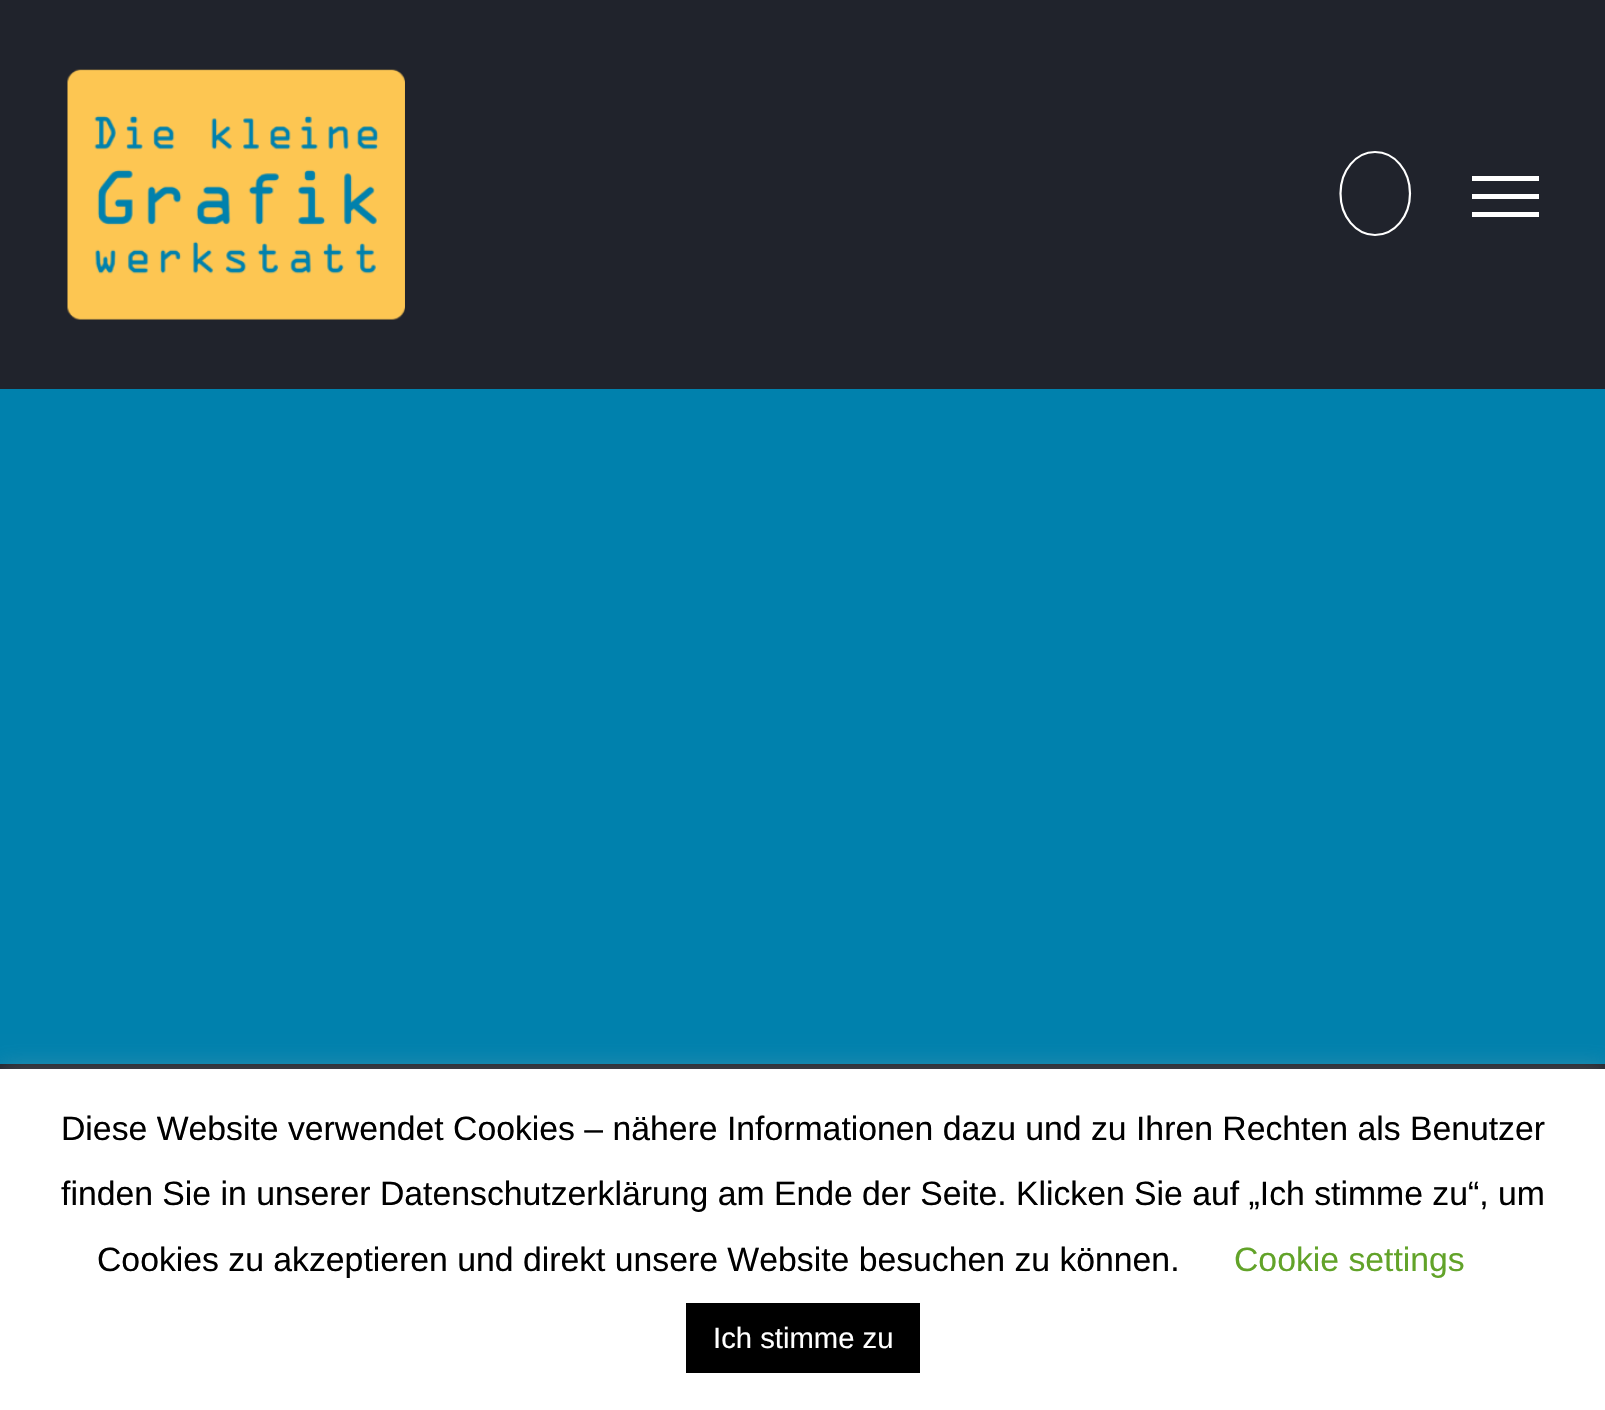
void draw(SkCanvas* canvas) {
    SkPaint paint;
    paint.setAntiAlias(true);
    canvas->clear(0xFF20232C);
    canvas->drawImageRect(SkImages::DeferredFromEncodedData(SkData::MakeFromFileName("img1.png")), SkRect::MakeXYWH(67, 69, 338, 251), SkSamplingOptions());
    paint.setStyle(SkPaint::kStroke_Style);
    paint.setStrokeWidth(2.2f);
    paint.setColor(0xFFFFFFFF);
    canvas->drawPath(SkPathBuilder().moveTo(1375, 152).cubicTo(1394.5f, 152, 1410, 170.5f, 1410, 193.5f).cubicTo(1410, 216.5f, 1394.5f, 235, 1375, 235).cubicTo(1356, 235, 1340.5f, 216.5f, 1340.5f, 193.5f).cubicTo(1340.5f, 170.5f, 1356, 152, 1375, 152).close().detach(), paint);
    paint.setStyle(SkPaint::kFill_Style);
    canvas->drawRect(SkRect::MakeXYWH(1472, 176, 67, 5), paint);
    canvas->drawRect(SkRect::MakeXYWH(1472, 194, 67, 5), paint);
    canvas->drawRect(SkRect::MakeXYWH(1472, 212, 67, 5), paint);
    paint.setColor(0xFF0081AD);
    canvas->drawRect(SkRect::MakeXYWH(0, 389, 1605, 675), paint);
    paint.setColor(0x4DACABAB);
    paint.setMaskFilter(SkMaskFilter::MakeBlur(kNormal_SkBlurStyle, 11));
    canvas->drawRect(SkRect::MakeXYWH(0, 1067, 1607, 342), paint);
    paint.setMaskFilter(nullptr);
    paint.setColor(0xFFFFFFFF);
    canvas->drawRect(SkRect::MakeXYWH(0, 1069, 1605, 341), paint);
    SkFont font1(fontMgr->matchFamilyStyle("Liberation Sans", SkFontStyle::Normal()), 33.75f);
    font1.setSubpixel(true);
    paint.setColor(0xFF000000);
    canvas->drawString("Diese Website verwendet Cookies – nähere Informationen dazu und zu Ihren Rechten als Benutzer", 61, 1140, font1, paint);
    canvas->drawString("finden Sie in unserer Datenschutzerklärung am Ende der Seite. Klicken Sie auf „Ich stimme zu“, um", 61, 1205, font1, paint);
    canvas->drawString("Cookies zu akzeptieren und direkt unsere Website besuchen zu können.", 97, 1271, font1, paint);
    paint.setColor(0xFF62A329);
    canvas->drawString("Cookie settings", 1234, 1271, font1, paint);
    paint.setColor(0xFF000000);
    canvas->drawRect(SkRect::MakeXYWH(686, 1303, 234, 70), paint);
    SkFont font2(fontMgr->matchFamilyStyle("Liberation Sans", SkFontStyle::Normal()), 29.25f);
    font2.setSubpixel(true);
    paint.setColor(0xFFFFFFFF);
    canvas->drawString("Ich stimme zu", 713, 1348, font2, paint);
}
